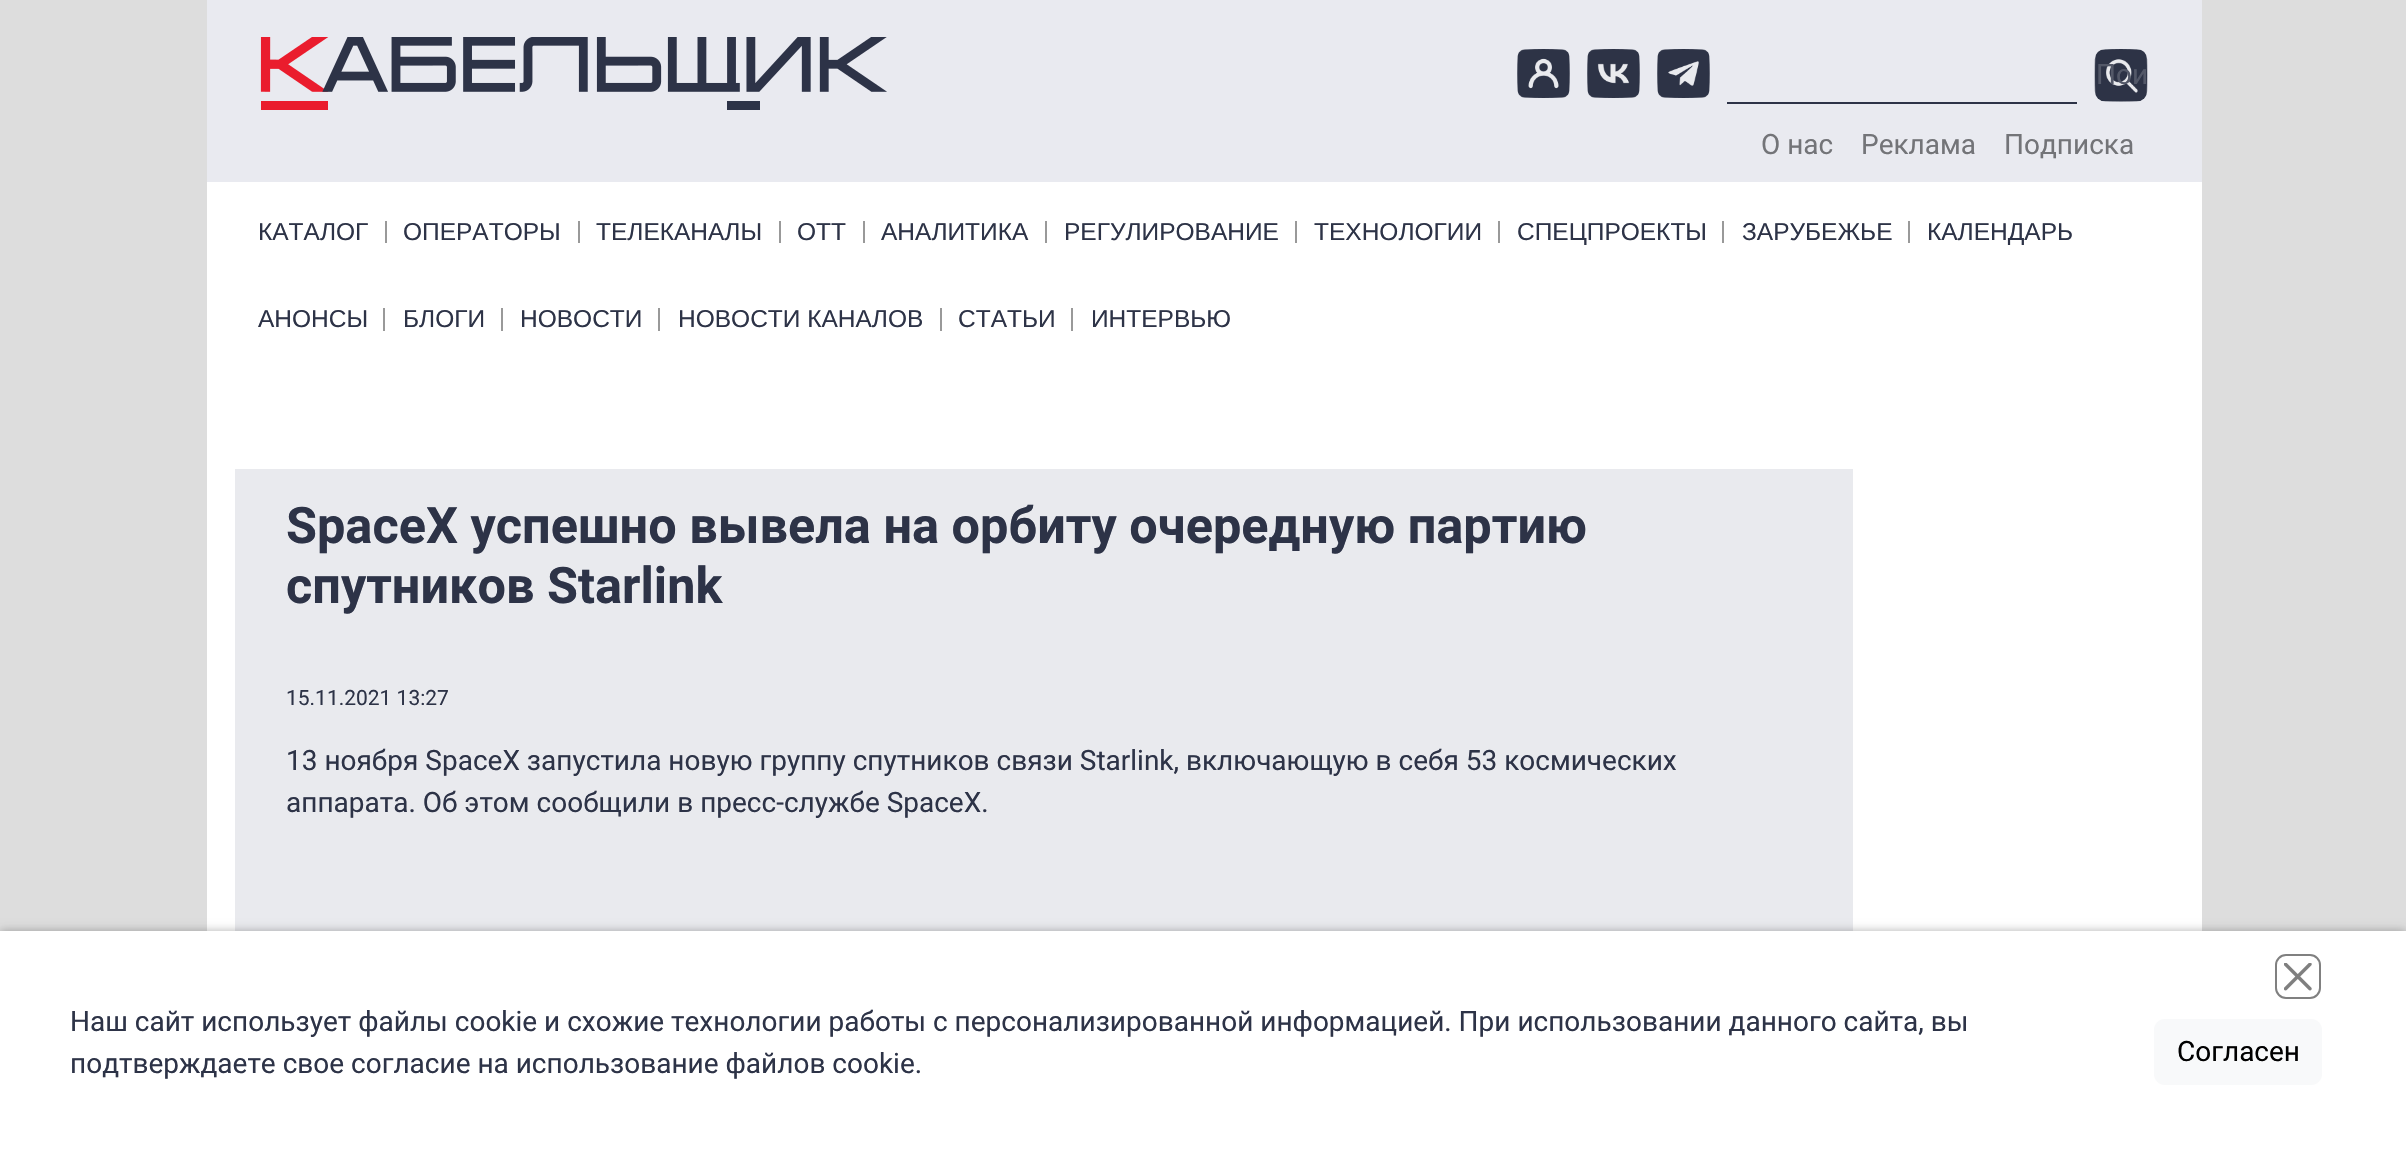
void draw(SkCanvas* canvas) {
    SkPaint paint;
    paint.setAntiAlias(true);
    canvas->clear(0xFFDDDDDD);
    paint.setColor(0xFFE9EAF0);
    canvas->drawRect(SkRect::MakeXYWH(207, 0, 1995, 182), paint);
    canvas->drawImageRect(SkImages::DeferredFromEncodedData(SkData::MakeFromFileName("img1.png")), SkRect::MakeXYWH(260, 37, 627, 73), SkSamplingOptions());
    canvas->drawImageRect(SkImages::DeferredFromEncodedData(SkData::MakeFromFileName("img2.png")), SkRect::MakeXYWH(1517, 49, 53, 49), SkSamplingOptions());
    canvas->drawImageRect(SkImages::DeferredFromEncodedData(SkData::MakeFromFileName("img3.png")), SkRect::MakeXYWH(1587, 49, 53, 49), SkSamplingOptions());
    canvas->drawImageRect(SkImages::DeferredFromEncodedData(SkData::MakeFromFileName("img4.png")), SkRect::MakeXYWH(1657, 49, 53, 49), SkSamplingOptions());
    canvas->drawImageRect(SkImages::DeferredFromEncodedData(SkData::MakeFromFileName("img5.png")), SkRect::MakeXYWH(2094, 49, 54, 53), SkSamplingOptions());
    SkFont font1(fontMgr->matchFamilyStyle("Roboto", SkFontStyle::Normal()), 28);
    font1.setSubpixel(true);
    paint.setColor(0xFF535868);
    canvas->drawString("Пои", 2096, 84, font1, paint);
    paint.setColor(0xFF2D3347);
    canvas->drawRect(SkRect::MakeXYWH(1727, 102, 350, 2), paint);
    paint.setColor(0xFF737478);
    canvas->drawString("О нас", 1761, 154, font1, paint);
    canvas->drawString("Реклама", 1861, 154, font1, paint);
    canvas->drawString("Подписка", 2004, 154, font1, paint);
    paint.setColor(0xFFFFFFFF);
    canvas->drawRect(SkRect::MakeXYWH(207, 182, 1995, 749), paint);
    SkFont font2(fontMgr->matchFamilyStyle("Liberation Sans", SkFontStyle::Normal()), 24.5f);
    font2.setSubpixel(true);
    paint.setColor(0xFF2D3347);
    canvas->drawString("КАТАЛОГ", 258, 240, font2, paint);
    paint.setColor(0xFF999999);
    canvas->drawRect(SkRect::MakeXYWH(385, 221, 2, 22), paint);
    paint.setColor(0xFF2D3347);
    canvas->drawString("ОПЕРАТОРЫ", 403, 240, font2, paint);
    paint.setColor(0xFF999999);
    canvas->drawRect(SkRect::MakeXYWH(578, 221, 2, 22), paint);
    paint.setColor(0xFF2D3347);
    canvas->drawString("ТЕЛЕКАНАЛЫ", 596, 240, font2, paint);
    paint.setColor(0xFF999999);
    canvas->drawRect(SkRect::MakeXYWH(779, 221, 2, 22), paint);
    paint.setColor(0xFF2D3347);
    canvas->drawString("ОТТ", 797, 240, font2, paint);
    paint.setColor(0xFF999999);
    canvas->drawRect(SkRect::MakeXYWH(863, 221, 2, 22), paint);
    paint.setColor(0xFF2D3347);
    canvas->drawString("АНАЛИТИКА", 881, 240, font2, paint);
    paint.setColor(0xFF999999);
    canvas->drawRect(SkRect::MakeXYWH(1045, 221, 2, 22), paint);
    paint.setColor(0xFF2D3347);
    canvas->drawString("РЕГУЛИРОВАНИЕ", 1064, 240, font2, paint);
    paint.setColor(0xFF999999);
    canvas->drawRect(SkRect::MakeXYWH(1295, 221, 2, 22), paint);
    paint.setColor(0xFF2D3347);
    canvas->drawString("ТЕХНОЛОГИИ", 1314, 240, font2, paint);
    paint.setColor(0xFF999999);
    canvas->drawRect(SkRect::MakeXYWH(1498, 221, 2, 22), paint);
    paint.setColor(0xFF2D3347);
    canvas->drawString("СПЕЦПРОЕКТЫ", 1517, 240, font2, paint);
    paint.setColor(0xFF999999);
    canvas->drawRect(SkRect::MakeXYWH(1722, 221, 2, 22), paint);
    paint.setColor(0xFF2D3347);
    canvas->drawString("ЗАРУБЕЖЬЕ", 1742, 240, font2, paint);
    paint.setColor(0xFF999999);
    canvas->drawRect(SkRect::MakeXYWH(1908, 221, 2, 22), paint);
    paint.setColor(0xFF2D3347);
    canvas->drawString("КАЛЕНДАРЬ", 1927, 240, font2, paint);
    canvas->drawString("АНОНСЫ", 258, 327, font2, paint);
    paint.setColor(0xFF999999);
    canvas->drawRect(SkRect::MakeXYWH(383, 308, 2, 23), paint);
    paint.setColor(0xFF2D3347);
    canvas->drawString("БЛОГИ", 403, 327, font2, paint);
    paint.setColor(0xFF999999);
    canvas->drawRect(SkRect::MakeXYWH(501, 308, 2, 23), paint);
    paint.setColor(0xFF2D3347);
    canvas->drawString("НОВОСТИ", 520, 327, font2, paint);
    paint.setColor(0xFF999999);
    canvas->drawRect(SkRect::MakeXYWH(658, 308, 2, 23), paint);
    paint.setColor(0xFF2D3347);
    canvas->drawString("НОВОСТИ КАНАЛОВ", 678, 327, font2, paint);
    paint.setColor(0xFF999999);
    canvas->drawRect(SkRect::MakeXYWH(940, 308, 2, 23), paint);
    paint.setColor(0xFF2D3347);
    canvas->drawString("СТАТЬИ", 958, 327, font2, paint);
    paint.setColor(0xFF999999);
    canvas->drawRect(SkRect::MakeXYWH(1071, 308, 2, 23), paint);
    paint.setColor(0xFF2D3347);
    canvas->drawString("ИНТЕРВЬЮ", 1091, 327, font2, paint);
    paint.setColor(0xFFE9EAEE);
    canvas->drawRect(SkRect::MakeXYWH(235, 469, 1618, 462), paint);
    SkFont font3(fontMgr->matchFamilyStyle("Roboto", SkFontStyle::Bold()), 50.4f);
    font3.setSubpixel(true);
    paint.setColor(0xFF2D3347);
    canvas->drawString("SpaceX успешно вывела на орбиту очередную партию", 286, 543, font3, paint);
    canvas->drawString("спутников Starlink", 286, 603, font3, paint);
    SkFont font4(fontMgr->matchFamilyStyle("Roboto", SkFontStyle::Normal()), 21);
    font4.setSubpixel(true);
    canvas->drawString("15.11.2021 13:27", 286, 705, font4, paint);
    canvas->drawString("13 ноября SpaceX запустила новую группу спутников связи Starlink, включающую в себя 53 космических", 286, 770, font1, paint);
    canvas->drawString("аппарата. Об этом сообщили в пресс-службе SpaceX.", 286, 812, font1, paint);
    paint.setColor(0x4D000000);
    paint.setMaskFilter(SkMaskFilter::MakeBlur(kNormal_SkBlurStyle, 4.5f));
    canvas->drawRect(SkRect::MakeXYWH(0, 931, 2406, 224), paint);
    paint.setMaskFilter(nullptr);
    paint.setColor(0xFFFFFFFF);
    canvas->drawRect(SkRect::MakeXYWH(0, 931, 2406, 223), paint);
    paint.setColor(0xFF2D3347);
    canvas->drawString("Наш сайт использует файлы cookie и схожие технологии работы с персонализированной информацией. При использовании данного сайта, вы", 70, 1031, font1, paint);
    canvas->drawString("подтверждаете свое согласие на использование файлов cookie.", 70, 1073, font1, paint);
    canvas->drawImageRect(SkImages::DeferredFromEncodedData(SkData::MakeFromFileName("img6.png")), SkRect::MakeXYWH(2284, 963, 28, 28), SkSamplingOptions());
    paint.setStyle(SkPaint::kStroke_Style);
    paint.setStrokeWidth(2);
    paint.setColor(0xFF808080);
    canvas->drawRoundRect(SkRect::MakeXYWH(2276, 955, 44, 43), 10, 10, paint);
    paint.setStyle(SkPaint::kFill_Style);
    paint.setColor(0xFFF8F9FA);
    canvas->drawRoundRect(SkRect::MakeXYWH(2154, 1019, 168, 66), 11, 11, paint);
    paint.setColor(0xFF000000);
    canvas->drawString("Согласен", 2177, 1061, font1, paint);
}
